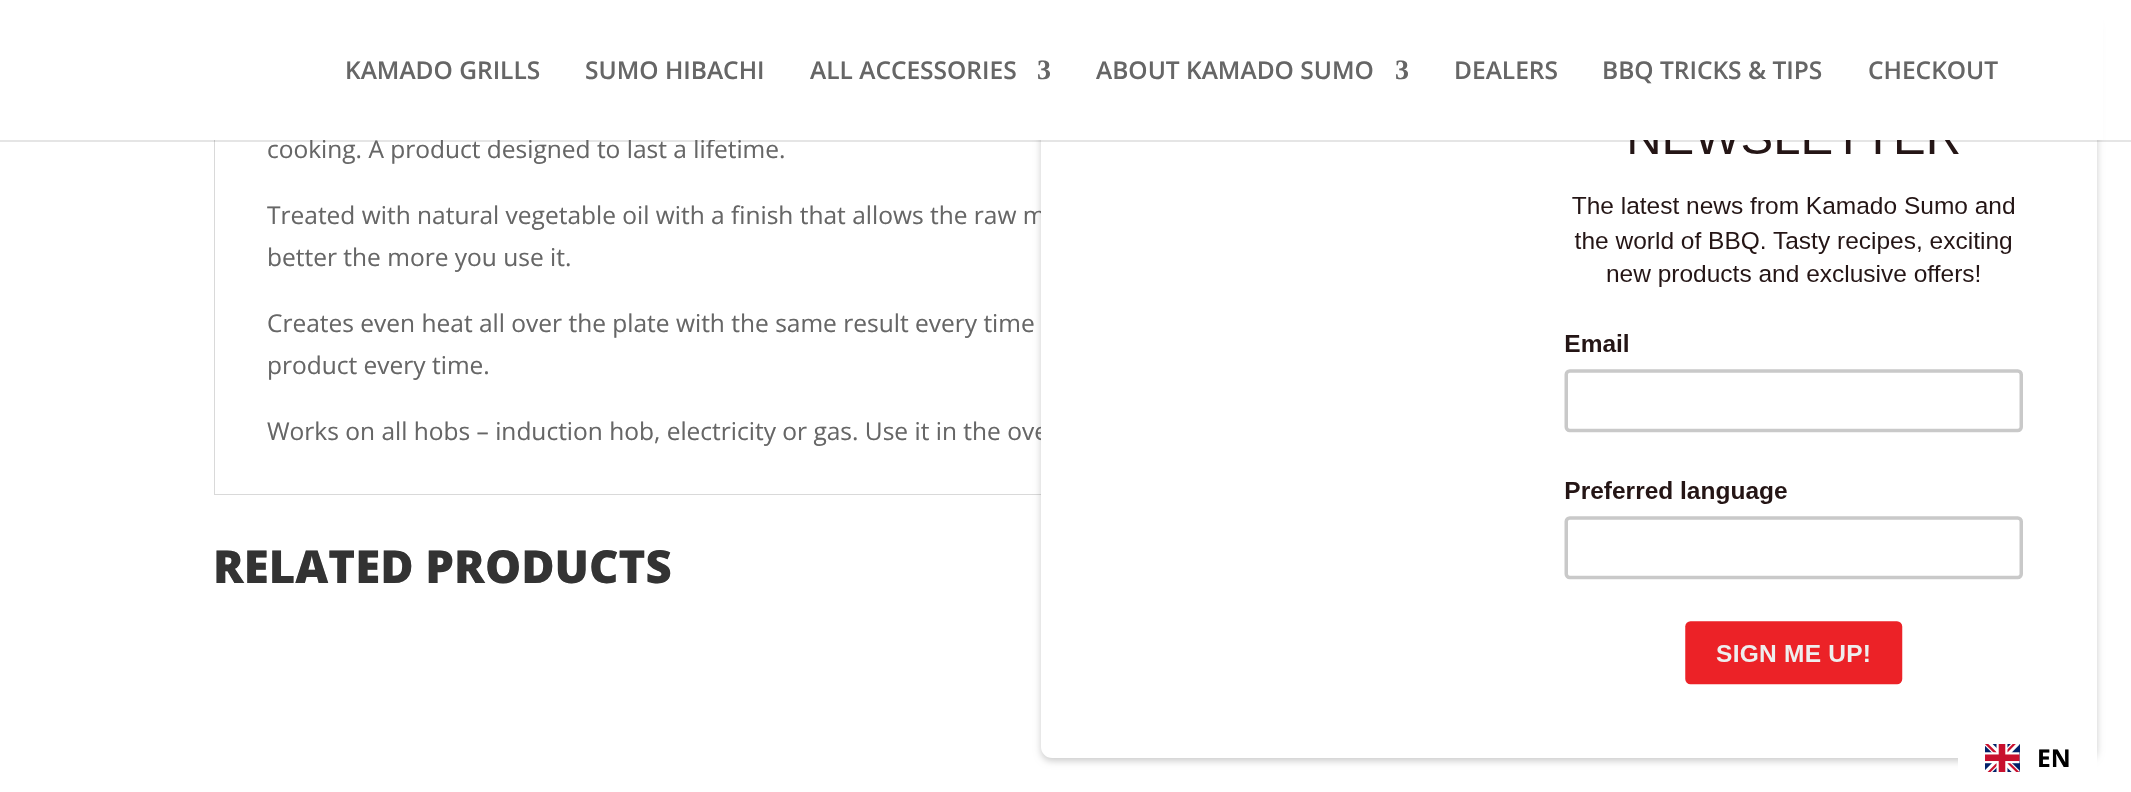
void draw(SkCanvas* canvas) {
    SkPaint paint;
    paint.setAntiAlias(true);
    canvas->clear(0xFFFFFFFF);
    paint.setStyle(SkPaint::kStroke_Style);
    paint.setStrokeWidth(2);
    paint.setColor(0xFFD9D9D9);
    canvas->drawRect(SkRect::MakeXYWH(215, -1, 1702, 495), paint);
    paint.setStyle(SkPaint::kFill_Style);
    paint.setColor(0xFFFFFFFF);
    canvas->drawRect(SkRect::MakeXYWH(215, 140, 826, 354), paint);
    paint.setColor(0x33000000);
    paint.setMaskFilter(SkMaskFilter::MakeBlur(kNormal_SkBlurStyle, 3.5f));
    canvas->drawRoundRect(SkRect::MakeXYWH(1041, 19, 1056, 742), 11, 11, paint);
    paint.setMaskFilter(nullptr);
    SkFont font1(fontMgr->matchFamilyStyle("Open Sans", SkFontStyle::Normal()), 24.5f);
    font1.setSubpixel(true);
    paint.setColor(0xFF666666);
    canvas->drawString("Treated with natural vegetable oil with a finish that allows the raw m", 267, 224, font1, paint);
    canvas->drawString("Works on all hobs – induction hob, electricity or gas. Use it in the ove", 267, 440, font1, paint);
    paint.setColor(0xFFFFFFFF);
    canvas->drawRoundRect(SkRect::MakeXYWH(1041, 16, 1056, 742), 11, 11, paint);
    canvas->drawImageRect(SkImages::DeferredFromEncodedData(SkData::MakeFromFileName("img1.png")), SkRect::MakeXYWH(1564, 140, 459, 545), SkSamplingOptions());
    paint.setColor(0x1A000000);
    canvas->drawPath(SkPathBuilder().moveTo(0, 140).lineTo(0, 142).lineTo(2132, 142).lineTo(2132, 2).lineTo(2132, 140).close().detach(), paint);
    paint.setColor(0xFF666666);
    canvas->drawString("cooking. A product designed to last a lifetime.", 267, 158, font1, paint);
    paint.setColor(0xFFFFFFFF);
    canvas->drawRect(SkRect::MakeXYWH(214, 0, 1889, 140), paint);
    SkFont font2(fontMgr->matchFamilyStyle("Open Sans", SkFontStyle(600, SkFontStyle::kNormal_Width, SkFontStyle::kUpright_Slant)), 24.5f);
    font2.setSubpixel(true);
    paint.setColor(0xFF666666);
    canvas->drawString("KAMADO GRILLS", 345, 79, font2, paint);
    canvas->drawString("SUMO HIBACHI", 585, 79, font2, paint);
    canvas->drawString("ALL ACCESSORIES", 810, 79, font2, paint);
    SkFont font3(fontMgr->matchFamilyStyle("Liberation Serif", SkFontStyle::Bold()), 28);
    font3.setSubpixel(true);
    canvas->drawString("3", 1037, 79, font3, paint);
    canvas->drawString("ABOUT KAMADO SUMO", 1096, 79, font2, paint);
    canvas->drawString("3", 1395, 79, font3, paint);
    canvas->drawString("DEALERS", 1454, 79, font2, paint);
    canvas->drawString("BBQ TRICKS & TIPS", 1602, 79, font2, paint);
    canvas->drawString("CHECKOUT", 1868, 79, font2, paint);
    canvas->drawString("better the more you use it.", 267, 266, font1, paint);
    canvas->drawString("Creates even heat all over the plate with the same result every time", 267, 332, font1, paint);
    canvas->drawString("product every time.", 267, 374, font1, paint);
    SkFont font4(fontMgr->matchFamilyStyle("Open Sans", SkFontStyle(800, SkFontStyle::kNormal_Width, SkFontStyle::kUpright_Slant)), 45.5f);
    font4.setSubpixel(true);
    paint.setColor(0xFF333333);
    canvas->drawString("RELATED PRODUCTS", 213, 583, font4, paint);
    paint.setColor(0xFFFFFFFF);
    canvas->drawRoundRect(SkRect::MakeXYWH(1958, 723, 139, 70), 9, 9, paint);
    canvas->drawImageRect(SkImages::DeferredFromEncodedData(SkData::MakeFromFileName("img2.png")), SkRect::MakeXYWH(1985, 744, 35, 28), SkSamplingOptions());
    SkFont font5(fontMgr->matchFamilyStyle("Noto Sans", SkFontStyle::Bold()), 24.5f);
    font5.setSubpixel(true);
    paint.setColor(0xFF000000);
    canvas->drawString("EN", 2037, 767, font5, paint);
}
